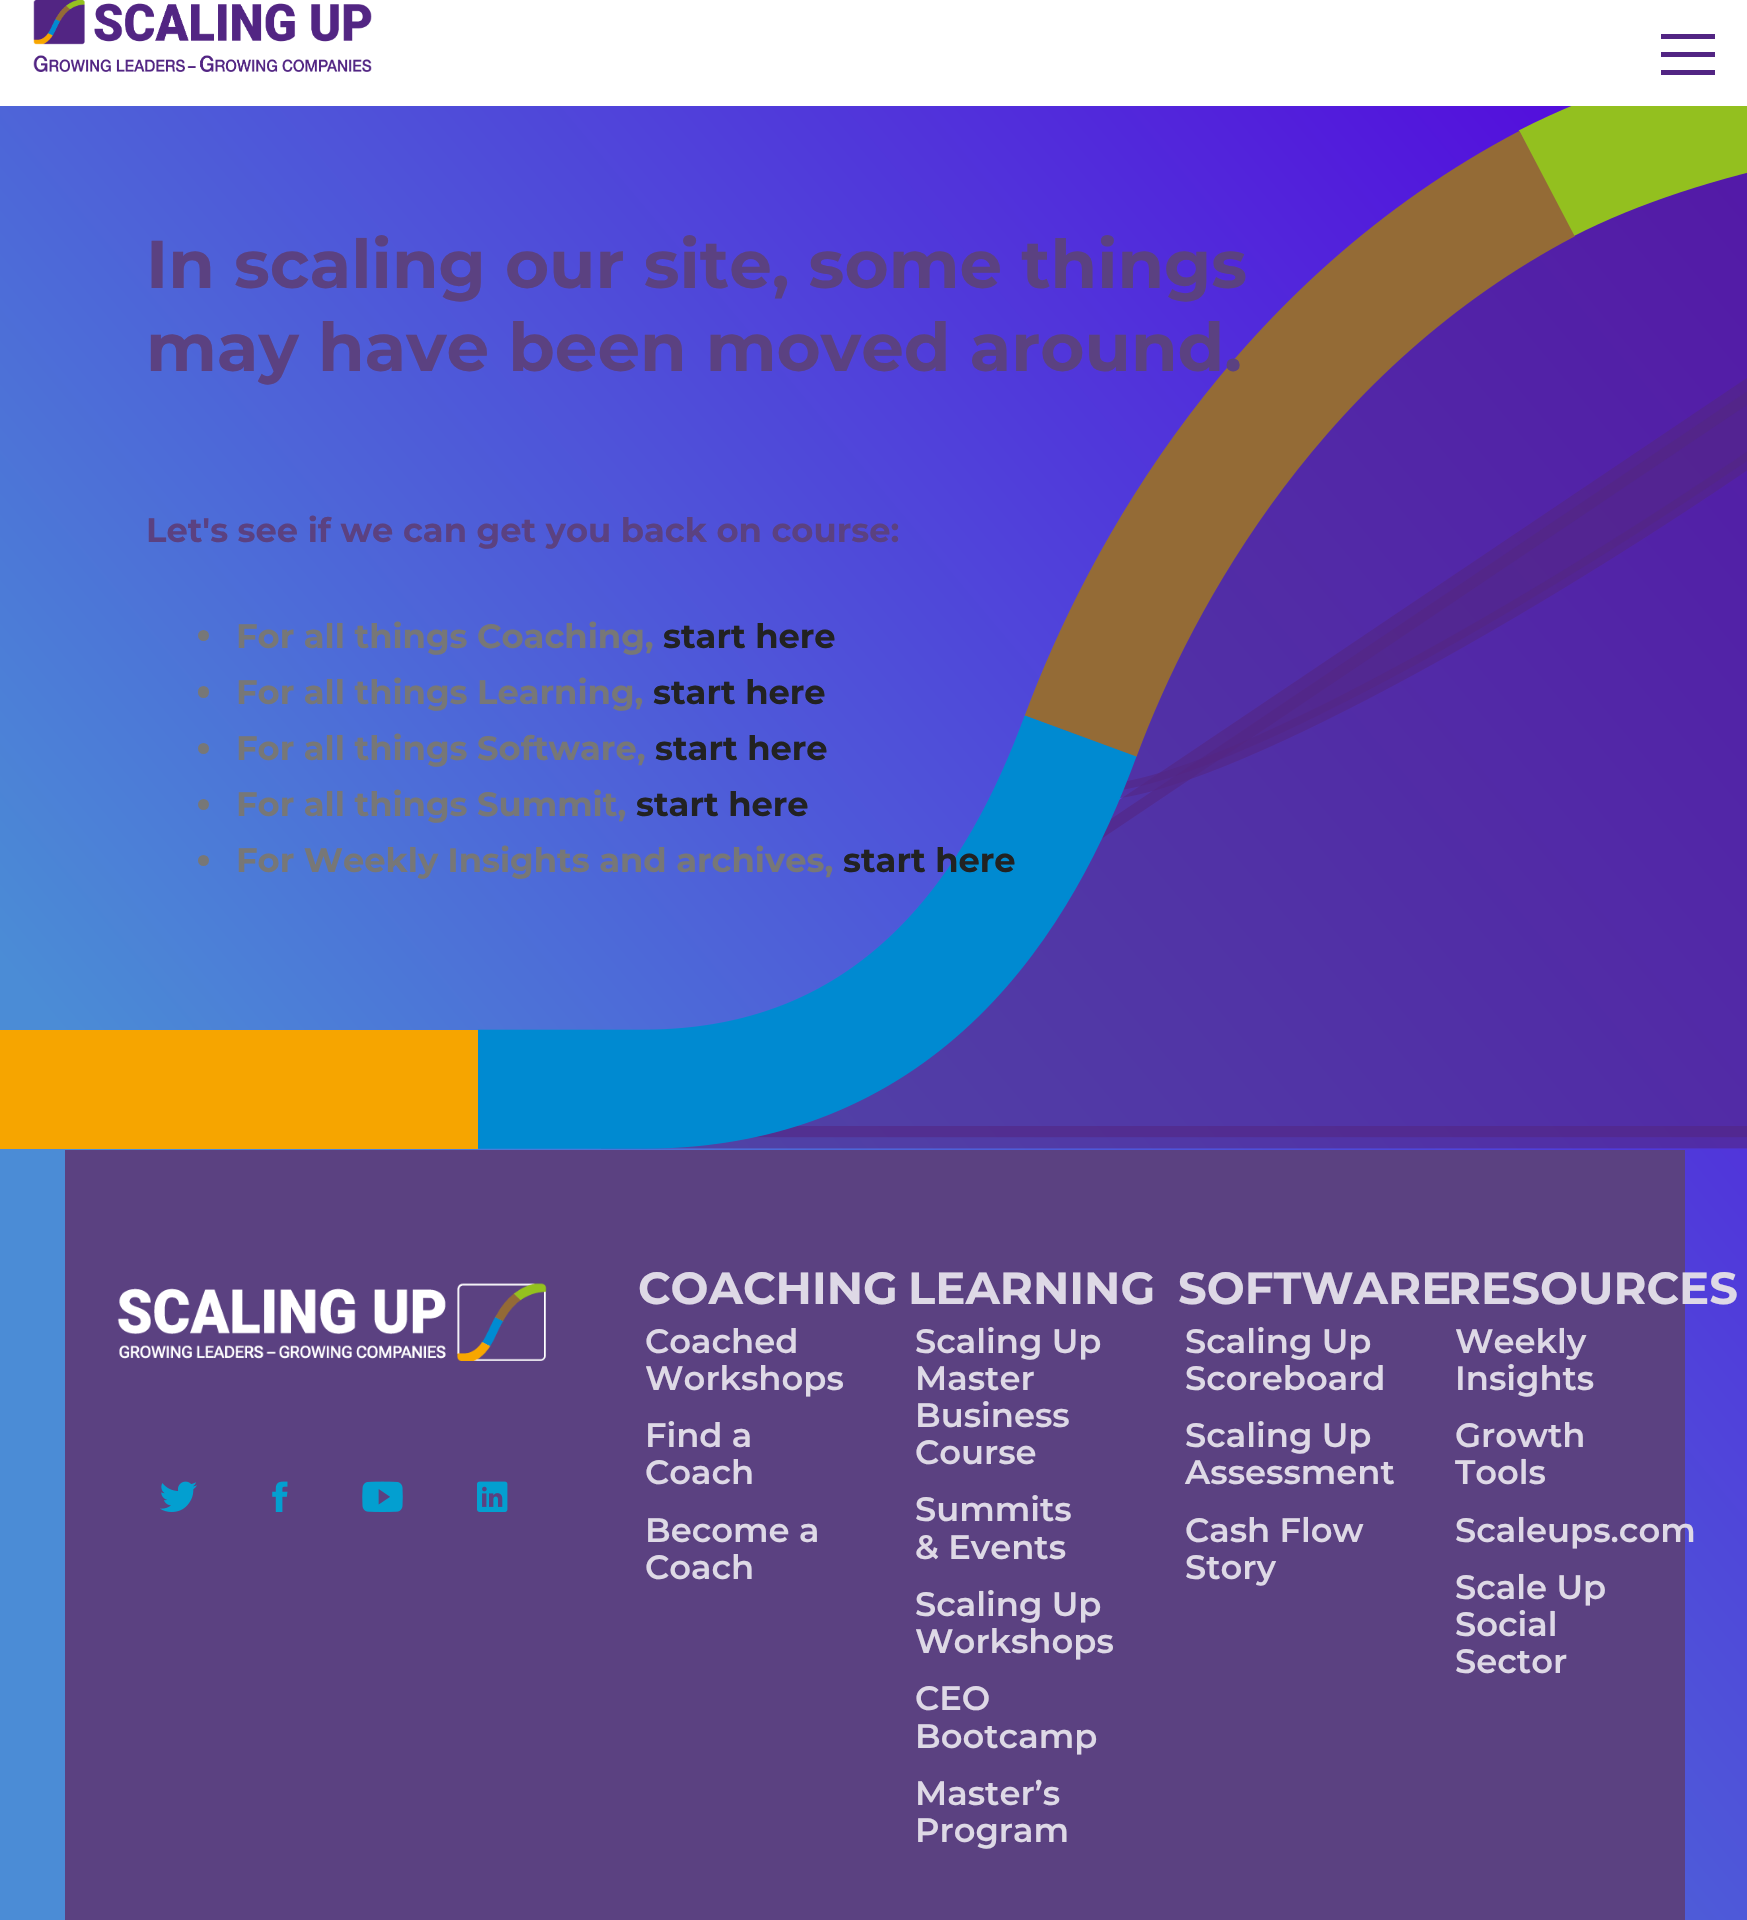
void draw(SkCanvas* canvas) {
    SkPaint paint;
    paint.setAntiAlias(true);
    canvas->clear(0xFFFFFFFF);
    {
        const SkColor colors[] = {0xFF5400DD, 0xFF4B8CD6};
        const float stops[] = {0, 0.76f};
        const SkPoint ends[] = {{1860, 133}, {-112, 1788}};
        paint.setShader(SkGradientShader::MakeLinear(ends, colors, stops, 2, SkTileMode::kClamp));
        paint.setAlpha(255);
    }
    canvas->drawRect(SkRect::MakeXYWH(0, 106, 1747, 1814), paint);
    canvas->drawImageRect(SkImages::DeferredFromEncodedData(SkData::MakeFromFileName("img1.png")), SkRect::MakeXYWH(33, 0, 339, 72), SkSamplingOptions());
    paint.setShader(nullptr);
    paint.setColor(0xFF522583);
    canvas->drawRect(SkRect::MakeXYWH(1661, 52, 54, 5), paint);
    canvas->drawRect(SkRect::MakeXYWH(1661, 34, 54, 5), paint);
    canvas->drawRect(SkRect::MakeXYWH(1661, 70, 54, 5), paint);
    canvas->drawImageRect(SkImages::DeferredFromEncodedData(SkData::MakeFromFileName("img2.png")), SkRect::MakeXYWH(0, 106, 1747, 1043), SkSamplingOptions());
    SkFont font1(fontMgr->matchFamilyStyle("Montserrat", SkFontStyle::Bold()), 67.5f);
    font1.setSubpixel(true);
    paint.setColor(0xFF5B4181);
    canvas->drawString("In scaling our site, some things", 146, 288, font1, paint);
    canvas->drawString("may have been moved around.", 146, 371, font1, paint);
    SkFont font2(fontMgr->matchFamilyStyle("Montserrat", SkFontStyle::Bold()), 33.75f);
    font2.setSubpixel(true);
    canvas->drawString("Let's see if we can get you back on course:", 146, 542, font2, paint);
    paint.setColor(0xFF777777);
    canvas->drawCircle(203.5f, 635.5f, 5.5f, paint);
    canvas->drawString("For all things Coaching,", 236, 648, font2, paint);
    paint.setColor(0xFF222222);
    canvas->drawString("start here", 663, 648, font2, paint);
    paint.setColor(0xFF777777);
    canvas->drawRoundRect(SkRect::MakeXYWH(198, 686, 11, 12), 5.5f, 5.5f, paint);
    canvas->drawString("For all things Learning,", 236, 704, font2, paint);
    paint.setColor(0xFF222222);
    canvas->drawString("start here", 653, 704, font2, paint);
    paint.setColor(0xFF777777);
    canvas->drawCircle(203.5f, 748.5f, 5.5f, paint);
    canvas->drawString("For all things Software,", 236, 760, font2, paint);
    paint.setColor(0xFF222222);
    canvas->drawString("start here", 655, 760, font2, paint);
    paint.setColor(0xFF777777);
    canvas->drawCircle(203.5f, 804.5f, 5.5f, paint);
    canvas->drawString("For all things Summit,", 236, 816, font2, paint);
    paint.setColor(0xFF222222);
    canvas->drawString("start here", 636, 816, font2, paint);
    paint.setColor(0xFF777777);
    canvas->drawCircle(203.5f, 860.5f, 5.5f, paint);
    canvas->drawString("For Weekly Insights and archives,", 236, 872, font2, paint);
    paint.setColor(0xFF222222);
    canvas->drawString("start here", 843, 872, font2, paint);
    paint.setColor(0xFF5B4181);
    canvas->drawRect(SkRect::MakeXYWH(65, 1150, 1620, 770), paint);
    canvas->drawImageRect(SkImages::DeferredFromEncodedData(SkData::MakeFromFileName("img3.png")), SkRect::MakeXYWH(117, 1283, 430, 78), SkSamplingOptions());
    canvas->drawImageRect(SkImages::DeferredFromEncodedData(SkData::MakeFromFileName("img4.png")), SkRect::MakeXYWH(160, 1481, 37, 31), SkSamplingOptions());
    canvas->drawImageRect(SkImages::DeferredFromEncodedData(SkData::MakeFromFileName("img5.png")), SkRect::MakeXYWH(272, 1481, 16, 31), SkSamplingOptions());
    canvas->drawImageRect(SkImages::DeferredFromEncodedData(SkData::MakeFromFileName("img6.png")), SkRect::MakeXYWH(362, 1481, 41, 31), SkSamplingOptions());
    canvas->drawImageRect(SkImages::DeferredFromEncodedData(SkData::MakeFromFileName("img7.png")), SkRect::MakeXYWH(477, 1481, 31, 31), SkSamplingOptions());
    SkFont font3(fontMgr->matchFamilyStyle("Montserrat", SkFontStyle::Bold()), 45);
    font3.setSubpixel(true);
    paint.setColor(0xFFDED9E6);
    canvas->drawString("COACHING", 638, 1304, font3, paint);
    SkFont font4(fontMgr->matchFamilyStyle("Montserrat", SkFontStyle(600, SkFontStyle::kNormal_Width, SkFontStyle::kUpright_Slant)), 33.75f);
    font4.setSubpixel(true);
    canvas->drawString("Coached", 645, 1353, font4, paint);
    canvas->drawString("Workshops", 645, 1390, font4, paint);
    canvas->drawString("Find a", 645, 1447, font4, paint);
    canvas->drawString("Coach", 645, 1484, font4, paint);
    canvas->drawString("Become a", 645, 1542, font4, paint);
    canvas->drawString("Coach", 645, 1579, font4, paint);
    canvas->drawString("LEARNING", 908, 1304, font3, paint);
    canvas->drawString("Scaling Up", 915, 1353, font4, paint);
    canvas->drawString("Master", 915, 1390, font4, paint);
    canvas->drawString("Business", 915, 1427, font4, paint);
    canvas->drawString("Course", 915, 1464, font4, paint);
    canvas->drawString("Summits", 915, 1521, font4, paint);
    canvas->drawString("& Events", 915, 1559, font4, paint);
    canvas->drawString("Scaling Up", 915, 1616, font4, paint);
    canvas->drawString("Workshops", 915, 1653, font4, paint);
    canvas->drawString("CEO", 915, 1710, font4, paint);
    canvas->drawString("Bootcamp", 915, 1748, font4, paint);
    canvas->drawString("Master’s", 915, 1805, font4, paint);
    canvas->drawString("Program", 915, 1842, font4, paint);
    canvas->drawString("SOFTWARE", 1178, 1304, font3, paint);
    canvas->drawString("Scaling Up", 1185, 1353, font4, paint);
    canvas->drawString("Scoreboard", 1185, 1390, font4, paint);
    canvas->drawString("Scaling Up", 1185, 1447, font4, paint);
    canvas->drawString("Assessment", 1185, 1484, font4, paint);
    canvas->drawString("Cash Flow", 1185, 1542, font4, paint);
    canvas->drawString("Story", 1185, 1579, font4, paint);
    canvas->drawString("RESOURCES", 1448, 1304, font3, paint);
    canvas->drawString("Weekly", 1455, 1353, font4, paint);
    canvas->drawString("Insights", 1455, 1390, font4, paint);
    canvas->drawString("Growth", 1455, 1447, font4, paint);
    canvas->drawString("Tools", 1455, 1484, font4, paint);
    canvas->drawString("Scaleups.com", 1455, 1542, font4, paint);
    canvas->drawString("Scale Up", 1455, 1599, font4, paint);
    canvas->drawString("Social", 1455, 1636, font4, paint);
    canvas->drawString("Sector", 1455, 1673, font4, paint);
}
